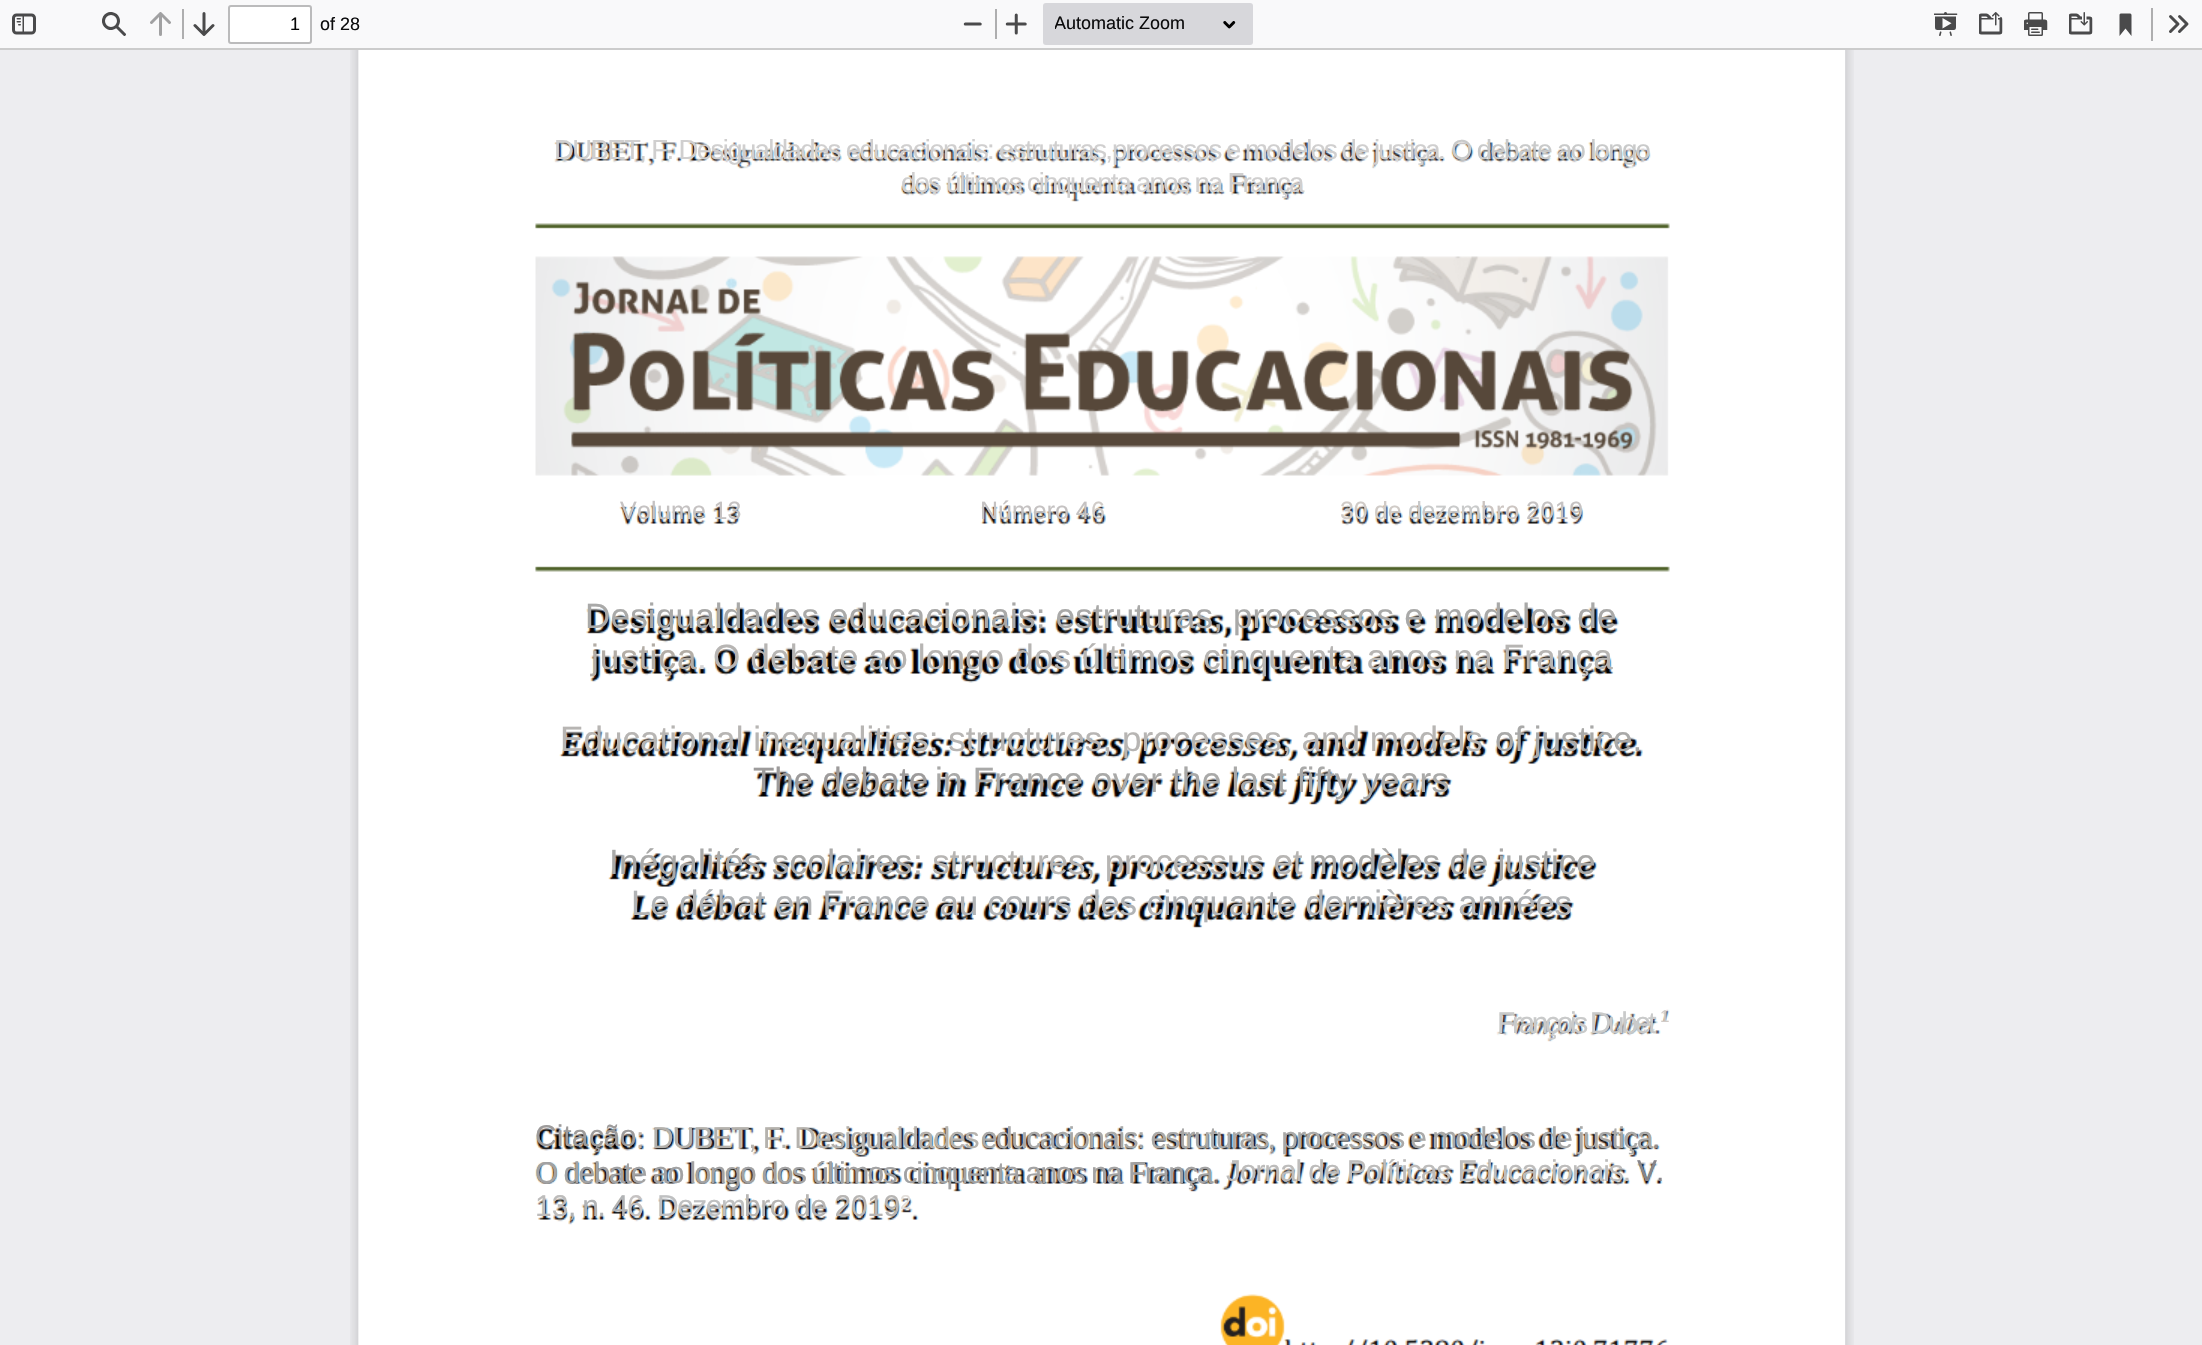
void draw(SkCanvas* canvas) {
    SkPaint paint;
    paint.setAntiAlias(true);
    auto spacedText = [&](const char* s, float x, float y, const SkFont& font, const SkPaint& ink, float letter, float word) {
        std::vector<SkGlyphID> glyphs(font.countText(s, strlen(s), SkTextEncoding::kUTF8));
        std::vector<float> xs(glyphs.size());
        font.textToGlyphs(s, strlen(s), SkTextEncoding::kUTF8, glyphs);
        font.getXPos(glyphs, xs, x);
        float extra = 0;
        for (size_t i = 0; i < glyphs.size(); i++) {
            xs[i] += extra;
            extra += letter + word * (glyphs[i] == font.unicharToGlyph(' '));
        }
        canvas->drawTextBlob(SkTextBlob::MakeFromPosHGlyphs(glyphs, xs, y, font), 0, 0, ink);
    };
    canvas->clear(0xFFEDEDF0);
    paint.setColor(0xFFCCCCCC);
    canvas->drawRect(SkRect::MakeXYWH(0, 48, 2202, 2), paint);
    paint.setColor(0xFFF9F9FA);
    canvas->drawRect(SkRect::MakeXYWH(0, 0, 2202, 48), paint);
    canvas->drawImageRect(SkImages::DeferredFromEncodedData(SkData::MakeFromFileName("img1.png")), SkRect::MakeXYWH(12, 13, 24, 22), SkSamplingOptions());
    canvas->drawImageRect(SkImages::DeferredFromEncodedData(SkData::MakeFromFileName("img2.png")), SkRect::MakeXYWH(102, 12, 24, 24), SkSamplingOptions());
    canvas->drawImageRect(SkImages::DeferredFromEncodedData(SkData::MakeFromFileName("img3.png")), SkRect::MakeXYWH(150, 12, 21, 24), SkSamplingOptions());
    paint.setColor(0xFFAEAEAF);
    canvas->drawRect(SkRect::MakeXYWH(182, 9, 2, 30), paint);
    canvas->drawImageRect(SkImages::DeferredFromEncodedData(SkData::MakeFromFileName("img4.png")), SkRect::MakeXYWH(193, 12, 22, 24), SkSamplingOptions());
    paint.setColor(0xFFFFFFFF);
    canvas->drawRoundRect(SkRect::MakeXYWH(229, 6, 82, 37), 2, 2, paint);
    paint.setStyle(SkPaint::kStroke_Style);
    paint.setStrokeWidth(2);
    paint.setColor(0xFFBBBBBC);
    canvas->drawRoundRect(SkRect::MakeXYWH(229, 6, 82, 37), 2, 2, paint);
    SkFont font1(fontMgr->matchFamilyStyle("Liberation Sans", SkFontStyle::Normal()), 18);
    font1.setSubpixel(true);
    paint.setStyle(SkPaint::kFill_Style);
    paint.setColor(0xFF060606);
    canvas->drawString("1", 290, 30, font1, paint);
    paint.setColor(0xFF0C0C0D);
    canvas->drawString("of 28", 320, 30, font1, paint);
    canvas->drawImageRect(SkImages::DeferredFromEncodedData(SkData::MakeFromFileName("img5.png")), SkRect::MakeXYWH(963, 22, 19, 4), SkSamplingOptions());
    paint.setColor(0xFFAEAEAF);
    canvas->drawRect(SkRect::MakeXYWH(995, 9, 2, 30), paint);
    canvas->drawImageRect(SkImages::DeferredFromEncodedData(SkData::MakeFromFileName("img6.png")), SkRect::MakeXYWH(1005, 13, 22, 22), SkSamplingOptions());
    paint.setColor(0xFFD7D7DB);
    canvas->drawRoundRect(SkRect::MakeXYWH(1043, 3, 210, 42), 3, 3, paint);
    canvas->save();
    canvas->clipRect(SkRect::MakeXYWH(1055, 12, 207, 24));
    paint.setColor(0xFF0C0C0D);
    canvas->drawString("Automatic Zoom", 1054, 29, font1, paint);
    canvas->restore();
    canvas->drawImageRect(SkImages::DeferredFromEncodedData(SkData::MakeFromFileName("img7.png")), SkRect::MakeXYWH(1223, 21, 13, 8), SkSamplingOptions());
    canvas->drawImageRect(SkImages::DeferredFromEncodedData(SkData::MakeFromFileName("img8.png")), SkRect::MakeXYWH(1934, 12, 24, 24), SkSamplingOptions());
    canvas->drawImageRect(SkImages::DeferredFromEncodedData(SkData::MakeFromFileName("img9.png")), SkRect::MakeXYWH(1979, 12, 24, 23), SkSamplingOptions());
    canvas->drawImageRect(SkImages::DeferredFromEncodedData(SkData::MakeFromFileName("img10.png")), SkRect::MakeXYWH(2024, 12, 24, 24), SkSamplingOptions());
    canvas->drawImageRect(SkImages::DeferredFromEncodedData(SkData::MakeFromFileName("img11.png")), SkRect::MakeXYWH(2069, 12, 24, 23), SkSamplingOptions());
    canvas->drawImageRect(SkImages::DeferredFromEncodedData(SkData::MakeFromFileName("img12.png")), SkRect::MakeXYWH(2119, 13, 13, 23), SkSamplingOptions());
    paint.setColor(0xFFAEAEAF);
    canvas->drawRect(SkRect::MakeXYWH(2151, 8, 2, 33), paint);
    canvas->drawImageRect(SkImages::DeferredFromEncodedData(SkData::MakeFromFileName("img13.png")), SkRect::MakeXYWH(2169, 15, 20, 18), SkSamplingOptions());
    canvas->drawImageRect(SkImages::DeferredFromEncodedData(SkData::MakeFromFileName("img14.png")), SkRect::MakeXYWH(350, 50, 1504, 1295), SkSamplingOptions());
    canvas->drawImageRect(SkImages::DeferredFromEncodedData(SkData::MakeFromFileName("img15.png")), SkRect::MakeXYWH(358, 50, 1487, 1295), SkSamplingOptions());
    SkFont font2(fontMgr->matchFamilyStyle("Liberation Sans", SkFontStyle::Normal()), 27.6f);
    font2.setSubpixel(true);
    paint.setColor(0xFFD0CFCF);
    spacedText("DUBET, F. Desigualdades educacionais: estruturas,", 554, 159, font2, paint, -1.65f, 0);
    spacedText("processos e modelos de justiça", 1112, 159, font2, paint, -1.95f, 0);
    spacedText(".", 1438, 159, font2, paint, -1, 0);
    paint.setColor(0xFFC9CACA);
    spacedText("O debate ao longo", 1451, 159, font2, paint, -1.7f, 0);
    paint.setColor(0xFFD0CFCF);
    spacedText("dos últimos cinquenta anos na França", 901, 192, font2, paint, -1.8f, 0);
    SkFont font3(fontMgr->matchFamilyStyle("Liberation Sans", SkFontStyle::Normal()), 25);
    font3.setSubpixel(true);
    paint.setColor(0xFFC5C2C2);
    spacedText("Volume 13", 620, 519, font3, paint, 0.25f, 0);
    canvas->drawString("Número 4", 980, 519, font3, paint);
    paint.setColor(0xFFD0CBC7);
    canvas->drawString("6", 1091, 519, font3, paint);
    spacedText("30 de", 1340, 519, font3, paint, -0.25f, 0);
    paint.setColor(0xFFC9CACA);
    spacedText("dezem", 1408, 519, font3, paint, -0.5f, 0);
    paint.setColor(0xFFCCC5C1);
    spacedText("bro", 1481, 519, font3, paint, 1, 0);
    paint.setColor(0xFFC5C2C2);
    spacedText("2019", 1526, 519, font3, paint, 0.5f, 0);
    SkFont font4(fontMgr->matchFamilyStyle("Liberation Sans", SkFontStyle::Normal()), 35.1f);
    font4.setSubpixel(true);
    paint.setColor(0xFFA9A9A8);
    spacedText("Desigualdades educacionais: estruturas, processos e modelos de", 585, 628, font4, paint, 0.15f, 0);
    paint.setColor(0xFFB3ADA6);
    spacedText("justiça", 591, 669, font4, paint, 1, 0);
    paint.setColor(0xFFD5D4D5);
    spacedText(".", 697, 669, font4, paint, -2, 0);
    paint.setColor(0xFFB7B5B3);
    spacedText("O debate ao longo dos últimos cinquenta anos na França", 713, 669, font4, paint, 0.15f, 0);
    canvas->drawString("Educational inequalities: structures, processes, and models", 560, 751, font4, paint);
    paint.setColor(0xFFA9A9A8);
    spacedText("of justice.", 1495, 751, font4, paint, -0.1f, 0);
    paint.setColor(0xFF9D9B9B);
    spacedText("The debate", 753, 792, font4, paint, -0.25f, 0);
    paint.setColor(0xFFA9A9A8);
    spacedText("in France over the last fifty years", 935, 792, font4, paint, 0.2f, 0);
    spacedText("Inégalités scolaires", 609, 874, font4, paint, 0.25f, 0);
    paint.setColor(0xFFB7B5B3);
    spacedText(": structures, processus et", 913, 874, font4, paint, -0.1f, 0);
    paint.setColor(0xFFA9A9A8);
    spacedText("modèles de justice", 1309, 874, font4, paint, -0.25f, 0);
    paint.setColor(0xFFB1B3B5);
    spacedText("Le débat en France au cours des cinquante dernières années", 631, 915, font4, paint, -0.3f, 0);
    SkFont font5(fontMgr->matchFamilyStyle("Liberation Sans", SkFontStyle::Normal()), 30);
    font5.setSubpixel(true);
    paint.setColor(0xFFC9CACA);
    spacedText("François Dubet", 1497, 1033, font5, paint, -3.4f, 0);
    SkFont font6(fontMgr->matchFamilyStyle("Liberation Sans", SkFontStyle::Normal()), 17);
    font6.setSubpixel(true);
    paint.setColor(0xFFD0CBC7);
    canvas->drawString("1", 1660, 1022, font6, paint);
    paint.setColor(0xFF9D9B9B);
    canvas->drawString("Cita", 535, 1146, font5, paint);
    spacedText("ção", 589, 1146, font5, paint, -0.5f, 0);
    paint.setColor(0xFFC0B0A3);
    canvas->drawString(":", 636, 1148, font5, paint);
    paint.setColor(0xFFB5B2AD);
    spacedText("DUBET, F. Desigualdades", 652, 1148, font5, paint, -1.1f, 0);
    paint.setColor(0xFFA9A9A8);
    spacedText("educacionais: estruturas, processos e modelos de justiça", 981, 1148, font5, paint, -1.6f, 0);
    paint.setColor(0xFF988C89);
    canvas->drawString(".", 1652, 1148, font5, paint);
    paint.setColor(0xFFA2A2A3);
    spacedText("O debate ao longo dos últimos cinquenta anos na França", 535, 1183, font5, paint, -1.58f, 0);
    paint.setColor(0xFF7C6761);
    canvas->drawString(".", 1212, 1183, font5, paint);
    paint.setColor(0xFFBDBCBB);
    spacedText("Jornal de Políticas Educacionais.", 1226, 1181, font5, paint, -1.1f, 0);
    paint.setColor(0xFF87858A);
    spacedText("V.", 1637, 1181, font5, paint, -1, 0);
    paint.setColor(0xFFBDBCBB);
    canvas->drawString("13", 535, 1216, font5, paint);
    paint.setColor(0xFFB1B3B5);
    spacedText(", n. 4", 568, 1216, font5, paint, -1.25f, 0);
    paint.setColor(0xFFC5C2C2);
    canvas->drawString("6", 627, 1216, font5, paint);
    paint.setColor(0xFFBFC0C1);
    spacedText("Dezem", 657, 1216, font5, paint, -1.5f, 0);
    paint.setColor(0xFFB7B5B3);
    spacedText("bro de 2019", 744, 1216, font5, paint, -0.4f, 0);
    SkFont font7(fontMgr->matchFamilyStyle("Liberation Sans", SkFontStyle::Normal()), 20);
    font7.setSubpixel(true);
    paint.setColor(0xFFE1DDD9);
    canvas->drawString("2", 900, 1209, font7, paint);
}
